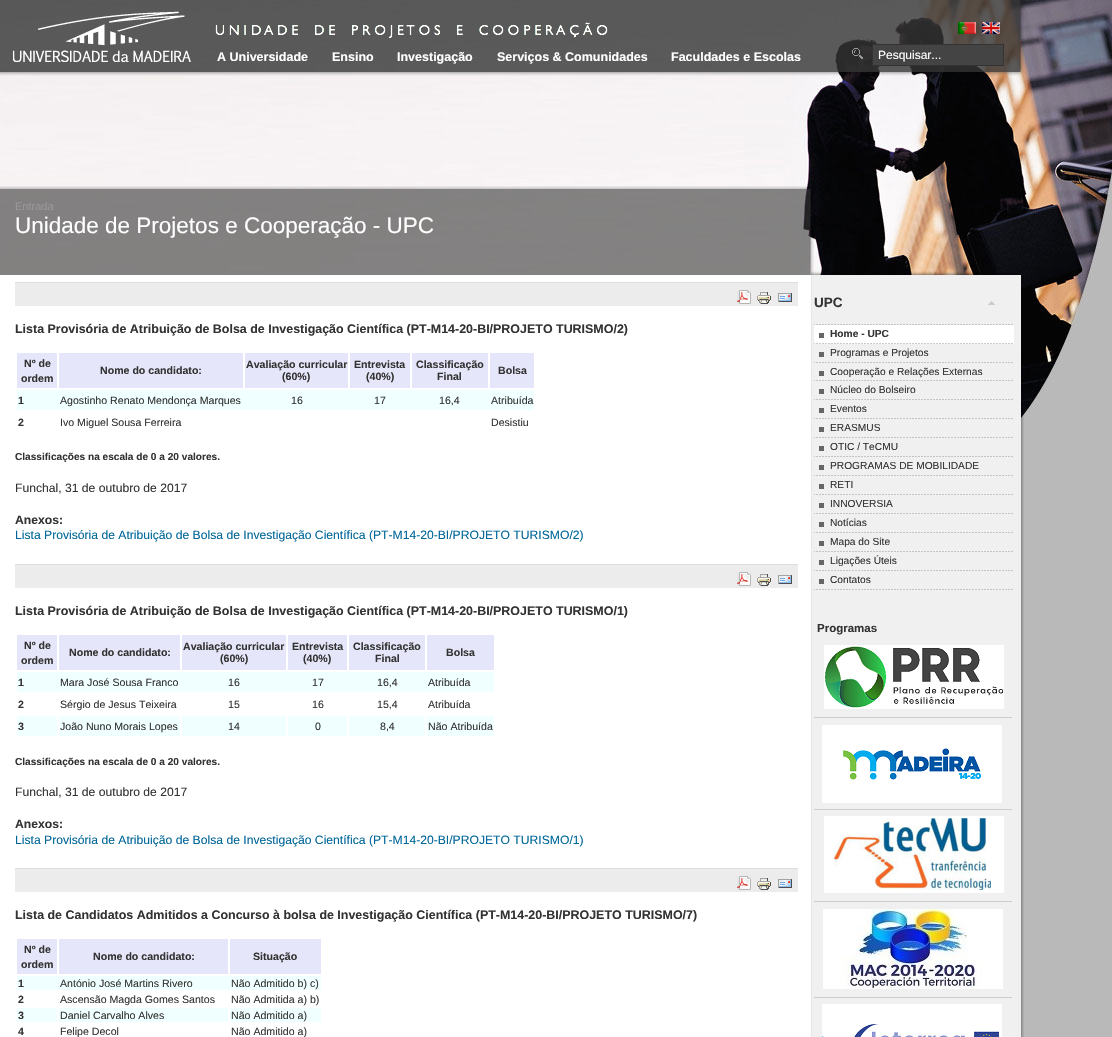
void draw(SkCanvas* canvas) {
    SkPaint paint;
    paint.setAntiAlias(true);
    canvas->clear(0xFFB9B9B9);
    canvas->drawImageRect(SkImages::DeferredFromEncodedData(SkData::MakeFromFileName("img1.png")), SkRect::MakeXYWH(0, 0, 1112, 479), SkSamplingOptions());
    canvas->drawImageRect(SkImages::DeferredFromEncodedData(SkData::MakeFromFileName("img2.png")), SkRect::MakeXYWH(0, 0, 1024, 76), SkSamplingOptions());
    SkFont font1(fontMgr->matchFamilyStyle("Liberation Sans", SkFontStyle::Bold()), 12.5f);
    font1.setSubpixel(true);
    paint.setColor(0xFFFFFFFF);
    canvas->drawString("A Universidade", 217, 61, font1, paint);
    canvas->drawString("Ensino", 332, 61, font1, paint);
    canvas->drawString("Investigação", 397, 61, font1, paint);
    canvas->drawString("Serviços & Comunidades", 497, 61, font1, paint);
    canvas->drawString("Faculdades e Escolas", 671, 61, font1, paint);
    canvas->drawImageRect(SkImages::DeferredFromEncodedData(SkData::MakeFromFileName("img3.png")), SkRect::MakeXYWH(13, 11, 178, 51), SkSamplingOptions());
    canvas->drawImageRect(SkImages::DeferredFromEncodedData(SkData::MakeFromFileName("img4.png")), SkRect::MakeXYWH(215, 22, 393, 16), SkSamplingOptions());
    canvas->drawImageRect(SkImages::DeferredFromEncodedData(SkData::MakeFromFileName("img5.png")), SkRect::MakeXYWH(852, 48, 11, 11), SkSamplingOptions());
    canvas->drawImageRect(SkImages::DeferredFromEncodedData(SkData::MakeFromFileName("img6.png")), SkRect::MakeXYWH(958, 22, 18, 12), SkSamplingOptions());
    canvas->drawImageRect(SkImages::DeferredFromEncodedData(SkData::MakeFromFileName("img7.png")), SkRect::MakeXYWH(982, 22, 18, 12), SkSamplingOptions());
    paint.setColor(0xFF444444);
    canvas->drawRect(SkRect::MakeXYWH(872.5f, 44.5f, 131, 21), paint);
    paint.setStyle(SkPaint::kStroke_Style);
    paint.setStrokeWidth(1);
    paint.setColor(0xFF333333);
    canvas->drawRect(SkRect::MakeXYWH(872.5f, 44.5f, 131, 21), paint);
    SkFont font2(fontMgr->matchFamilyStyle("Liberation Sans", SkFontStyle::Normal()), 12);
    font2.setSubpixel(true);
    paint.setStyle(SkPaint::kFill_Style);
    paint.setColor(0xFFFFFFFF);
    canvas->drawString("Pesquisar...", 878, 59, font2, paint);
    canvas->drawImageRect(SkImages::DeferredFromEncodedData(SkData::MakeFromFileName("img8.png")), SkRect::MakeXYWH(0, 275, 1024, 762), SkSamplingOptions());
    canvas->drawImageRect(SkImages::DeferredFromEncodedData(SkData::MakeFromFileName("img13.png")), SkRect::MakeXYWH(811, 271, 208, 4), SkSamplingOptions());
    canvas->drawImageRect(SkImages::DeferredFromEncodedData(SkData::MakeFromFileName("img9.png")), SkRect::MakeXYWH(0, 186, 814, 89), SkSamplingOptions());
    SkFont font3(fontMgr->matchFamilyStyle("Liberation Sans", SkFontStyle::Normal()), 11);
    font3.setSubpixel(true);
    paint.setColor(0xFF999999);
    canvas->drawString("Entrada", 15, 210, font3, paint);
    SkFont font4(fontMgr->matchFamilyStyle("Liberation Sans", SkFontStyle::Normal()), 22.5f);
    font4.setSubpixel(true);
    paint.setColor(0xFFFFFFFF);
    canvas->drawString("Unidade de Projetos e Cooperação - UPC", 15, 233, font4, paint);
    paint.setColor(0xFFECECEC);
    canvas->drawRect(SkRect::MakeXYWH(15, 283, 783, 23), paint);
    paint.setColor(0xFFDDDDDD);
    canvas->drawRect(SkRect::MakeXYWH(15, 282, 783, 1), paint);
    canvas->drawImageRect(SkImages::DeferredFromEncodedData(SkData::MakeFromFileName("img10.png")), SkRect::MakeXYWH(737, 290, 14, 14), SkSamplingOptions());
    canvas->drawImageRect(SkImages::DeferredFromEncodedData(SkData::MakeFromFileName("img11.png")), SkRect::MakeXYWH(757, 292, 14, 12), SkSamplingOptions());
    canvas->drawImageRect(SkImages::DeferredFromEncodedData(SkData::MakeFromFileName("img12.png")), SkRect::MakeXYWH(778, 293, 14, 9), SkSamplingOptions());
    SkFont font5(fontMgr->matchFamilyStyle("Liberation Sans", SkFontStyle::Bold()), 12.45f);
    font5.setSubpixel(true);
    paint.setColor(0xFF333333);
    canvas->drawString("Lista Provisória de Atribuição de Bolsa de Investigação Científica (PT-M14-20-BI/PROJETO TURISMO/2)", 15, 333, font5, paint);
    paint.setColor(0xFFE6E6FA);
    canvas->drawRect(SkRect::MakeXYWH(17, 353, 40, 35), paint);
    SkFont font6(fontMgr->matchFamilyStyle("Liberation Sans", SkFontStyle::Bold()), 10.6f);
    font6.setSubpixel(true);
    paint.setColor(0xFF333333);
    canvas->drawString("Nº de", 24, 367, font6, paint);
    canvas->drawString("ordem", 21, 382, font6, paint);
    paint.setColor(0xFFE6E6FA);
    canvas->drawRect(SkRect::MakeXYWH(59, 353, 184, 35), paint);
    paint.setColor(0xFF333333);
    canvas->drawString("Nome do candidato:", 100, 374, font6, paint);
    paint.setColor(0xFFE6E6FA);
    canvas->drawRect(SkRect::MakeXYWH(245, 353, 103, 35), paint);
    paint.setColor(0xFF333333);
    canvas->drawString("Avaliação curricular", 246, 368, font6, paint);
    canvas->drawString("(60%)", 282, 380, font6, paint);
    paint.setColor(0xFFE6E6FA);
    canvas->drawRect(SkRect::MakeXYWH(350, 353, 60, 35), paint);
    paint.setColor(0xFF333333);
    canvas->drawString("Entrevista", 354, 368, font6, paint);
    canvas->drawString("(40%)", 366, 380, font6, paint);
    paint.setColor(0xFFE6E6FA);
    canvas->drawRect(SkRect::MakeXYWH(412, 353, 76, 35), paint);
    paint.setColor(0xFF333333);
    canvas->drawString("Classificação", 416, 368, font6, paint);
    canvas->drawString("Final", 437, 380, font6, paint);
    paint.setColor(0xFFE6E6FA);
    canvas->drawRect(SkRect::MakeXYWH(490, 353, 44, 35), paint);
    paint.setColor(0xFF333333);
    canvas->drawString("Bolsa", 498, 374, font6, paint);
    paint.setColor(0xFFF0FFFF);
    canvas->drawRect(SkRect::MakeXYWH(17, 390, 517, 20), paint);
    paint.setColor(0xFF333333);
    canvas->drawString("1", 18, 404, font6, paint);
    SkFont font7(fontMgr->matchFamilyStyle("Liberation Sans", SkFontStyle::Normal()), 10.6f);
    font7.setSubpixel(true);
    canvas->drawString("Agostinho Renato Mendonça Marques", 60, 404, font7, paint);
    canvas->drawString("16", 291, 404, font7, paint);
    canvas->drawString("17", 374, 404, font7, paint);
    canvas->drawString("16,4", 439, 404, font7, paint);
    canvas->drawString("Atribuída", 491, 404, font7, paint);
    canvas->drawString("2", 18, 426, font6, paint);
    canvas->drawString("Ivo Miguel Sousa Ferreira", 60, 426, font7, paint);
    canvas->drawString("Desistiu", 491, 426, font7, paint);
    SkFont font8(fontMgr->matchFamilyStyle("Liberation Sans", SkFontStyle::Bold()), 10.1f);
    font8.setSubpixel(true);
    canvas->drawString("Classificações na escala de 0 a 20 valores.", 15, 460, font8, paint);
    SkFont font9(fontMgr->matchFamilyStyle("Liberation Sans", SkFontStyle::Normal()), 12.15f);
    font9.setSubpixel(true);
    canvas->drawString("Funchal, 31 de outubro de 2017", 15, 492, font9, paint);
    SkFont font10(fontMgr->matchFamilyStyle("Liberation Sans", SkFontStyle::Bold()), 12.15f);
    font10.setSubpixel(true);
    canvas->drawString("Anexos:", 15, 524, font10, paint);
    paint.setColor(0xFF006699);
    canvas->drawString("Lista Provisória de Atribuição de Bolsa de Investigação Científica (PT-M14-20-BI/PROJETO TURISMO/2)", 15, 539, font9, paint);
    paint.setColor(0xFFECECEC);
    canvas->drawRect(SkRect::MakeXYWH(15, 565, 783, 23), paint);
    paint.setColor(0xFFDDDDDD);
    canvas->drawRect(SkRect::MakeXYWH(15, 564, 783, 1), paint);
    canvas->drawImageRect(SkImages::DeferredFromEncodedData(SkData::MakeFromFileName("img10.png")), SkRect::MakeXYWH(737, 572, 14, 14), SkSamplingOptions());
    canvas->drawImageRect(SkImages::DeferredFromEncodedData(SkData::MakeFromFileName("img11.png")), SkRect::MakeXYWH(757, 574, 14, 12), SkSamplingOptions());
    canvas->drawImageRect(SkImages::DeferredFromEncodedData(SkData::MakeFromFileName("img12.png")), SkRect::MakeXYWH(778, 575, 14, 9), SkSamplingOptions());
    paint.setColor(0xFF333333);
    canvas->drawString("Lista Provisória de Atribuição de Bolsa de Investigação Científica (PT-M14-20-BI/PROJETO TURISMO/1)", 15, 615, font5, paint);
    paint.setColor(0xFFE6E6FA);
    canvas->drawRect(SkRect::MakeXYWH(17, 635, 40, 35), paint);
    paint.setColor(0xFF333333);
    canvas->drawString("Nº de", 24, 649, font6, paint);
    canvas->drawString("ordem", 21, 664, font6, paint);
    paint.setColor(0xFFE6E6FA);
    canvas->drawRect(SkRect::MakeXYWH(59, 635, 121, 35), paint);
    paint.setColor(0xFF333333);
    canvas->drawString("Nome do candidato:", 69, 656, font6, paint);
    paint.setColor(0xFFE6E6FA);
    canvas->drawRect(SkRect::MakeXYWH(182, 635, 104, 35), paint);
    paint.setColor(0xFF333333);
    canvas->drawString("Avaliação curricular", 183, 650, font6, paint);
    canvas->drawString("(60%)", 220, 662, font6, paint);
    paint.setColor(0xFFE6E6FA);
    canvas->drawRect(SkRect::MakeXYWH(288, 635, 59, 35), paint);
    paint.setColor(0xFF333333);
    canvas->drawString("Entrevista", 292, 650, font6, paint);
    canvas->drawString("(40%)", 303, 662, font6, paint);
    paint.setColor(0xFFE6E6FA);
    canvas->drawRect(SkRect::MakeXYWH(349, 635, 76, 35), paint);
    paint.setColor(0xFF333333);
    canvas->drawString("Classificação", 353, 650, font6, paint);
    canvas->drawString("Final", 375, 662, font6, paint);
    paint.setColor(0xFFE6E6FA);
    canvas->drawRect(SkRect::MakeXYWH(427, 635, 67, 35), paint);
    paint.setColor(0xFF333333);
    canvas->drawString("Bolsa", 446, 656, font6, paint);
    paint.setColor(0xFFF0FFFF);
    canvas->drawRect(SkRect::MakeXYWH(17, 672, 477, 20), paint);
    paint.setColor(0xFF333333);
    canvas->drawString("1", 18, 686, font6, paint);
    canvas->drawString("Mara José Sousa Franco", 60, 686, font7, paint);
    canvas->drawString("16", 228, 686, font7, paint);
    canvas->drawString("17", 312, 686, font7, paint);
    canvas->drawString("16,4", 377, 686, font7, paint);
    canvas->drawString("Atribuída", 428, 686, font7, paint);
    canvas->drawString("2", 18, 708, font6, paint);
    canvas->drawString("Sérgio de Jesus Teixeira", 60, 708, font7, paint);
    canvas->drawString("15", 228, 708, font7, paint);
    canvas->drawString("16", 312, 708, font7, paint);
    canvas->drawString("15,4", 377, 708, font7, paint);
    canvas->drawString("Atribuída", 428, 708, font7, paint);
    paint.setColor(0xFFF0FFFF);
    canvas->drawRect(SkRect::MakeXYWH(17, 716, 40, 20), paint);
    paint.setColor(0xFF333333);
    canvas->drawString("3", 18, 730, font6, paint);
    paint.setColor(0xFFF0FFFF);
    canvas->drawRect(SkRect::MakeXYWH(59, 716, 121, 20), paint);
    paint.setColor(0xFF333333);
    canvas->drawString("João Nuno Morais Lopes", 60, 730, font7, paint);
    paint.setColor(0xFFF0FFFF);
    canvas->drawRect(SkRect::MakeXYWH(182, 716, 104, 20), paint);
    paint.setColor(0xFF333333);
    canvas->drawString("14", 228, 730, font7, paint);
    paint.setColor(0xFFF0FFFF);
    canvas->drawRect(SkRect::MakeXYWH(288, 716, 59, 20), paint);
    paint.setColor(0xFF333333);
    canvas->drawString("0", 315, 730, font7, paint);
    paint.setColor(0xFFF0FFFF);
    canvas->drawRect(SkRect::MakeXYWH(349, 716, 76, 20), paint);
    paint.setColor(0xFF333333);
    canvas->drawString("8,4", 380, 730, font7, paint);
    paint.setColor(0xFFF0FFFF);
    canvas->drawRect(SkRect::MakeXYWH(427, 716, 67, 20), paint);
    paint.setColor(0xFF333333);
    canvas->drawString("Não Atribuída", 428, 730, font7, paint);
    canvas->drawString("Classificações na escala de 0 a 20 valores.", 15, 765, font8, paint);
    canvas->drawString("Funchal, 31 de outubro de 2017", 15, 796, font9, paint);
    canvas->drawString("Anexos:", 15, 828, font10, paint);
    paint.setColor(0xFF006699);
    canvas->drawString("Lista Provisória de Atribuição de Bolsa de Investigação Científica (PT-M14-20-BI/PROJETO TURISMO/1)", 15, 844, font9, paint);
    paint.setColor(0xFFECECEC);
    canvas->drawRect(SkRect::MakeXYWH(15, 869, 783, 23), paint);
    paint.setColor(0xFFDDDDDD);
    canvas->drawRect(SkRect::MakeXYWH(15, 868, 783, 1), paint);
    canvas->drawImageRect(SkImages::DeferredFromEncodedData(SkData::MakeFromFileName("img10.png")), SkRect::MakeXYWH(737, 876, 14, 14), SkSamplingOptions());
    canvas->drawImageRect(SkImages::DeferredFromEncodedData(SkData::MakeFromFileName("img11.png")), SkRect::MakeXYWH(757, 878, 14, 12), SkSamplingOptions());
    canvas->drawImageRect(SkImages::DeferredFromEncodedData(SkData::MakeFromFileName("img12.png")), SkRect::MakeXYWH(778, 879, 14, 9), SkSamplingOptions());
    paint.setColor(0xFF333333);
    canvas->drawString("Lista de Candidatos Admitidos a Concurso à bolsa de Investigação Científica (PT-M14-20-BI/PROJETO TURISMO/7)", 15, 919, font5, paint);
    paint.setColor(0xFFE6E6FA);
    canvas->drawRect(SkRect::MakeXYWH(17, 939, 40, 35), paint);
    paint.setColor(0xFF333333);
    canvas->drawString("Nº de", 24, 953, font6, paint);
    canvas->drawString("ordem", 21, 968, font6, paint);
    paint.setColor(0xFFE6E6FA);
    canvas->drawRect(SkRect::MakeXYWH(59, 939, 169, 35), paint);
    paint.setColor(0xFF333333);
    canvas->drawString("Nome do candidato:", 93, 960, font6, paint);
    paint.setColor(0xFFE6E6FA);
    canvas->drawRect(SkRect::MakeXYWH(230, 939, 91, 35), paint);
    paint.setColor(0xFF333333);
    canvas->drawString("Situação", 253, 960, font6, paint);
    paint.setColor(0xFFF0FFFF);
    canvas->drawRect(SkRect::MakeXYWH(17, 976, 304, 14), paint);
    paint.setColor(0xFF333333);
    canvas->drawString("1", 18, 987, font6, paint);
    canvas->drawString("António José Martins Rivero", 60, 987, font7, paint);
    canvas->drawString("Não Admitido b) c)", 231, 987, font7, paint);
    canvas->drawString("2", 18, 1003, font6, paint);
    canvas->drawString("Ascensão Magda Gomes Santos", 60, 1003, font7, paint);
    canvas->drawString("Não Admitida a) b)", 231, 1003, font7, paint);
    paint.setColor(0xFFF0FFFF);
    canvas->drawRect(SkRect::MakeXYWH(17, 1008, 40, 14), paint);
    paint.setColor(0xFF333333);
    canvas->drawString("3", 18, 1019, font6, paint);
    paint.setColor(0xFFF0FFFF);
    canvas->drawRect(SkRect::MakeXYWH(59, 1008, 169, 14), paint);
    paint.setColor(0xFF333333);
    canvas->drawString("Daniel Carvalho Alves", 60, 1019, font7, paint);
    paint.setColor(0xFFF0FFFF);
    canvas->drawRect(SkRect::MakeXYWH(230, 1008, 91, 14), paint);
    paint.setColor(0xFF333333);
    canvas->drawString("Não Admitido a)", 231, 1019, font7, paint);
    canvas->drawString("4", 18, 1035, font6, paint);
    canvas->drawString("Felipe Decol", 60, 1035, font7, paint);
    canvas->drawString("Não Admitido a)", 231, 1035, font7, paint);
    canvas->drawImageRect(SkImages::DeferredFromEncodedData(SkData::MakeFromFileName("img14.png")), SkRect::MakeXYWH(988, 301, 7, 4), SkSamplingOptions());
    SkFont font11(fontMgr->matchFamilyStyle("Liberation Sans", SkFontStyle::Bold()), 13.5f);
    font11.setSubpixel(true);
    canvas->drawString("UPC", 814, 307, font11, paint);
    canvas->drawImageRect(SkImages::DeferredFromEncodedData(SkData::MakeFromFileName("img15.png")), SkRect::MakeXYWH(814, 324, 199, 1), SkSamplingOptions());
    paint.setColor(0xFFFFFFFF);
    canvas->drawRect(SkRect::MakeXYWH(814, 325, 200, 19), paint);
    canvas->drawImageRect(SkImages::DeferredFromEncodedData(SkData::MakeFromFileName("img16.png")), SkRect::MakeXYWH(814, 343, 199, 1), SkSamplingOptions());
    SkFont font12(fontMgr->matchFamilyStyle("Liberation Sans", SkFontStyle::Bold()), 10.2f);
    font12.setSubpixel(true);
    paint.setColor(0xFF333333);
    canvas->drawString("Home - UPC", 830, 337, font12, paint);
    paint.setColor(0xFF666666);
    canvas->drawRect(SkRect::MakeXYWH(819, 333, 5, 5), paint);
    canvas->drawImageRect(SkImages::DeferredFromEncodedData(SkData::MakeFromFileName("img15.png")), SkRect::MakeXYWH(814, 362, 199, 1), SkSamplingOptions());
    SkFont font13(fontMgr->matchFamilyStyle("Liberation Sans", SkFontStyle::Normal()), 10.2f);
    font13.setSubpixel(true);
    paint.setColor(0xFF333333);
    canvas->drawString("Programas e Projetos", 830, 356, font13, paint);
    paint.setColor(0xFF666666);
    canvas->drawRect(SkRect::MakeXYWH(819, 352, 5, 5), paint);
    canvas->drawImageRect(SkImages::DeferredFromEncodedData(SkData::MakeFromFileName("img15.png")), SkRect::MakeXYWH(814, 380, 199, 1), SkSamplingOptions());
    paint.setColor(0xFF333333);
    canvas->drawString("Cooperação e Relações Externas", 830, 375, font13, paint);
    paint.setColor(0xFF666666);
    canvas->drawRect(SkRect::MakeXYWH(819, 371, 5, 5), paint);
    canvas->drawImageRect(SkImages::DeferredFromEncodedData(SkData::MakeFromFileName("img15.png")), SkRect::MakeXYWH(814, 399, 199, 1), SkSamplingOptions());
    paint.setColor(0xFF333333);
    canvas->drawString("Núcleo do Bolseiro", 830, 393, font13, paint);
    paint.setColor(0xFF666666);
    canvas->drawRect(SkRect::MakeXYWH(819, 389, 5, 5), paint);
    canvas->drawImageRect(SkImages::DeferredFromEncodedData(SkData::MakeFromFileName("img15.png")), SkRect::MakeXYWH(814, 418, 199, 1), SkSamplingOptions());
    paint.setColor(0xFF333333);
    canvas->drawString("Eventos", 830, 412, font13, paint);
    paint.setColor(0xFF666666);
    canvas->drawRect(SkRect::MakeXYWH(819, 408, 5, 5), paint);
    canvas->drawImageRect(SkImages::DeferredFromEncodedData(SkData::MakeFromFileName("img15.png")), SkRect::MakeXYWH(814, 437, 199, 1), SkSamplingOptions());
    paint.setColor(0xFF333333);
    canvas->drawString("ERASMUS", 830, 431, font13, paint);
    paint.setColor(0xFF666666);
    canvas->drawRect(SkRect::MakeXYWH(819, 427, 5, 5), paint);
    canvas->drawImageRect(SkImages::DeferredFromEncodedData(SkData::MakeFromFileName("img15.png")), SkRect::MakeXYWH(814, 456, 199, 1), SkSamplingOptions());
    paint.setColor(0xFF333333);
    canvas->drawString("OTIC / TeCMU", 830, 450, font13, paint);
    paint.setColor(0xFF666666);
    canvas->drawRect(SkRect::MakeXYWH(819, 446, 5, 5), paint);
    canvas->drawImageRect(SkImages::DeferredFromEncodedData(SkData::MakeFromFileName("img15.png")), SkRect::MakeXYWH(814, 475, 199, 1), SkSamplingOptions());
    paint.setColor(0xFF333333);
    canvas->drawString("PROGRAMAS DE MOBILIDADE", 830, 469, font13, paint);
    paint.setColor(0xFF666666);
    canvas->drawRect(SkRect::MakeXYWH(819, 465, 5, 5), paint);
    canvas->drawImageRect(SkImages::DeferredFromEncodedData(SkData::MakeFromFileName("img15.png")), SkRect::MakeXYWH(814, 494, 199, 1), SkSamplingOptions());
    paint.setColor(0xFF333333);
    canvas->drawString("RETI", 830, 488, font13, paint);
    paint.setColor(0xFF666666);
    canvas->drawRect(SkRect::MakeXYWH(819, 484, 5, 5), paint);
    canvas->drawImageRect(SkImages::DeferredFromEncodedData(SkData::MakeFromFileName("img15.png")), SkRect::MakeXYWH(814, 513, 199, 1), SkSamplingOptions());
    paint.setColor(0xFF333333);
    canvas->drawString("INNOVERSIA", 830, 507, font13, paint);
    paint.setColor(0xFF666666);
    canvas->drawRect(SkRect::MakeXYWH(819, 503, 5, 5), paint);
    canvas->drawImageRect(SkImages::DeferredFromEncodedData(SkData::MakeFromFileName("img15.png")), SkRect::MakeXYWH(814, 532, 199, 1), SkSamplingOptions());
    paint.setColor(0xFF333333);
    canvas->drawString("Notícias", 830, 526, font13, paint);
    paint.setColor(0xFF666666);
    canvas->drawRect(SkRect::MakeXYWH(819, 522, 5, 5), paint);
    canvas->drawImageRect(SkImages::DeferredFromEncodedData(SkData::MakeFromFileName("img15.png")), SkRect::MakeXYWH(814, 551, 199, 1), SkSamplingOptions());
    paint.setColor(0xFF333333);
    canvas->drawString("Mapa do Site", 830, 545, font13, paint);
    paint.setColor(0xFF666666);
    canvas->drawRect(SkRect::MakeXYWH(819, 541, 5, 5), paint);
    canvas->drawImageRect(SkImages::DeferredFromEncodedData(SkData::MakeFromFileName("img15.png")), SkRect::MakeXYWH(814, 570, 199, 1), SkSamplingOptions());
    paint.setColor(0xFF333333);
    canvas->drawString("Ligações Úteis", 830, 564, font13, paint);
    paint.setColor(0xFF666666);
    canvas->drawRect(SkRect::MakeXYWH(819, 560, 5, 5), paint);
    canvas->drawImageRect(SkImages::DeferredFromEncodedData(SkData::MakeFromFileName("img15.png")), SkRect::MakeXYWH(814, 589, 199, 1), SkSamplingOptions());
    paint.setColor(0xFF333333);
    canvas->drawString("Contatos", 830, 583, font13, paint);
    paint.setColor(0xFF666666);
    canvas->drawRect(SkRect::MakeXYWH(819, 579, 5, 5), paint);
    SkFont font14(fontMgr->matchFamilyStyle("Liberation Sans", SkFontStyle::Bold()), 11.5f);
    font14.setSubpixel(true);
    paint.setColor(0xFF333333);
    canvas->drawString("Programas", 817, 632, font14, paint);
    canvas->drawImageRect(SkImages::DeferredFromEncodedData(SkData::MakeFromFileName("img17.png")), SkRect::MakeXYWH(824, 645, 180, 64), SkSamplingOptions());
    paint.setColor(0xFFCCCCCC);
    canvas->drawRect(SkRect::MakeXYWH(814, 717, 198, 1), paint);
    canvas->drawImageRect(SkImages::DeferredFromEncodedData(SkData::MakeFromFileName("img18.png")), SkRect::MakeXYWH(822, 725, 180, 78), SkSamplingOptions());
    canvas->drawRect(SkRect::MakeXYWH(814, 809, 198, 1), paint);
    canvas->drawImageRect(SkImages::DeferredFromEncodedData(SkData::MakeFromFileName("img19.png")), SkRect::MakeXYWH(824, 816, 180, 77), SkSamplingOptions());
    canvas->drawRect(SkRect::MakeXYWH(814, 901, 198, 1), paint);
    canvas->drawImageRect(SkImages::DeferredFromEncodedData(SkData::MakeFromFileName("img20.png")), SkRect::MakeXYWH(823, 909, 180, 80), SkSamplingOptions());
    canvas->drawRect(SkRect::MakeXYWH(814, 997, 198, 1), paint);
    canvas->drawImageRect(SkImages::DeferredFromEncodedData(SkData::MakeFromFileName("img21.png")), SkRect::MakeXYWH(822, 1004, 180, 33), SkSamplingOptions());
}
